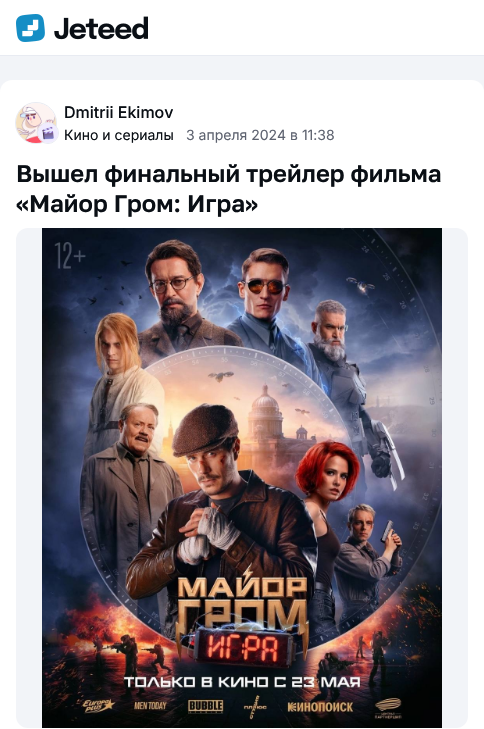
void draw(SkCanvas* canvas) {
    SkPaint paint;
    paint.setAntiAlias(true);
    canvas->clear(0xFFF2F4F8);
    paint.setColor(0xFFFFFFFF);
    canvas->drawRect(SkRect::MakeXYWH(0, 0, 484, 55), paint);
    paint.setColor(0xFFE8EBF2);
    canvas->drawRect(SkRect::MakeXYWH(0, 55, 484, 1), paint);
    canvas->drawImageRect(SkImages::DeferredFromEncodedData(SkData::MakeFromFileName("img1.png")), SkRect::MakeXYWH(16, 14, 132, 28), SkSamplingOptions());
    paint.setColor(0xFFFFFFFF);
    canvas->drawRoundRect(SkRect::MakeXYWH(0, 80, 484, 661), 12, 12, paint);
    paint.setStyle(SkPaint::kStroke_Style);
    paint.setStrokeWidth(1);
    paint.setColor(0xFFE8EBF2);
    canvas->drawCircle(36, 123, 20.5f, paint);
    paint.setStyle(SkPaint::kFill_Style);
    paint.setColor(0xFFF2F4F8);
    canvas->drawCircle(36, 123, 20, paint);
    canvas->drawImageRect(SkImages::DeferredFromEncodedData(SkData::MakeFromFileName("img2.png")), SkRect::MakeXYWH(16, 103, 40, 40), SkSamplingOptions());
    paint.setStyle(SkPaint::kStroke_Style);
    paint.setColor(0xFFE8EBF2);
    canvas->drawCircle(48, 133, 10.5f, paint);
    paint.setStyle(SkPaint::kFill_Style);
    paint.setColor(0xFFF2F4F8);
    canvas->drawCircle(48, 133, 10, paint);
    canvas->drawImageRect(SkImages::DeferredFromEncodedData(SkData::MakeFromFileName("img3.png")), SkRect::MakeXYWH(38, 123, 20, 20), SkSamplingOptions());
    SkFont font1(fontMgr->matchFamilyStyle("Inter", SkFontStyle(500, SkFontStyle::kNormal_Width, SkFontStyle::kUpright_Slant)), 16);
    font1.setSubpixel(true);
    paint.setColor(0xFF0A0F15);
    canvas->drawString("Dmitrii Ekimov", 64, 118, font1, paint);
    SkFont font2(fontMgr->matchFamilyStyle("Inter", SkFontStyle::Normal()), 14);
    font2.setSubpixel(true);
    canvas->drawString("Кино и сериалы", 64, 140, font2, paint);
    paint.setColor(0xFF5E6370);
    canvas->drawString("3 апреля 2024 в 11:38", 186, 140, font2, paint);
    SkFont font3(fontMgr->matchFamilyStyle("Golos Text", SkFontStyle(600, SkFontStyle::kNormal_Width, SkFontStyle::kUpright_Slant)), 24);
    font3.setSubpixel(true);
    paint.setColor(0xFF0A0F15);
    canvas->drawString("Вышел финальный трейлер фильма", 16, 182, font3, paint);
    canvas->drawString("«Майор Гром: Игра»", 16, 212, font3, paint);
    paint.setColor(0xFFF2F4F8);
    canvas->drawRoundRect(SkRect::MakeXYWH(16, 228, 452, 500), 12, 12, paint);
    canvas->drawImageRect(SkImages::DeferredFromEncodedData(SkData::MakeFromFileName("img4.png")), SkRect::MakeXYWH(42, 228, 400, 500), SkSamplingOptions());
}
